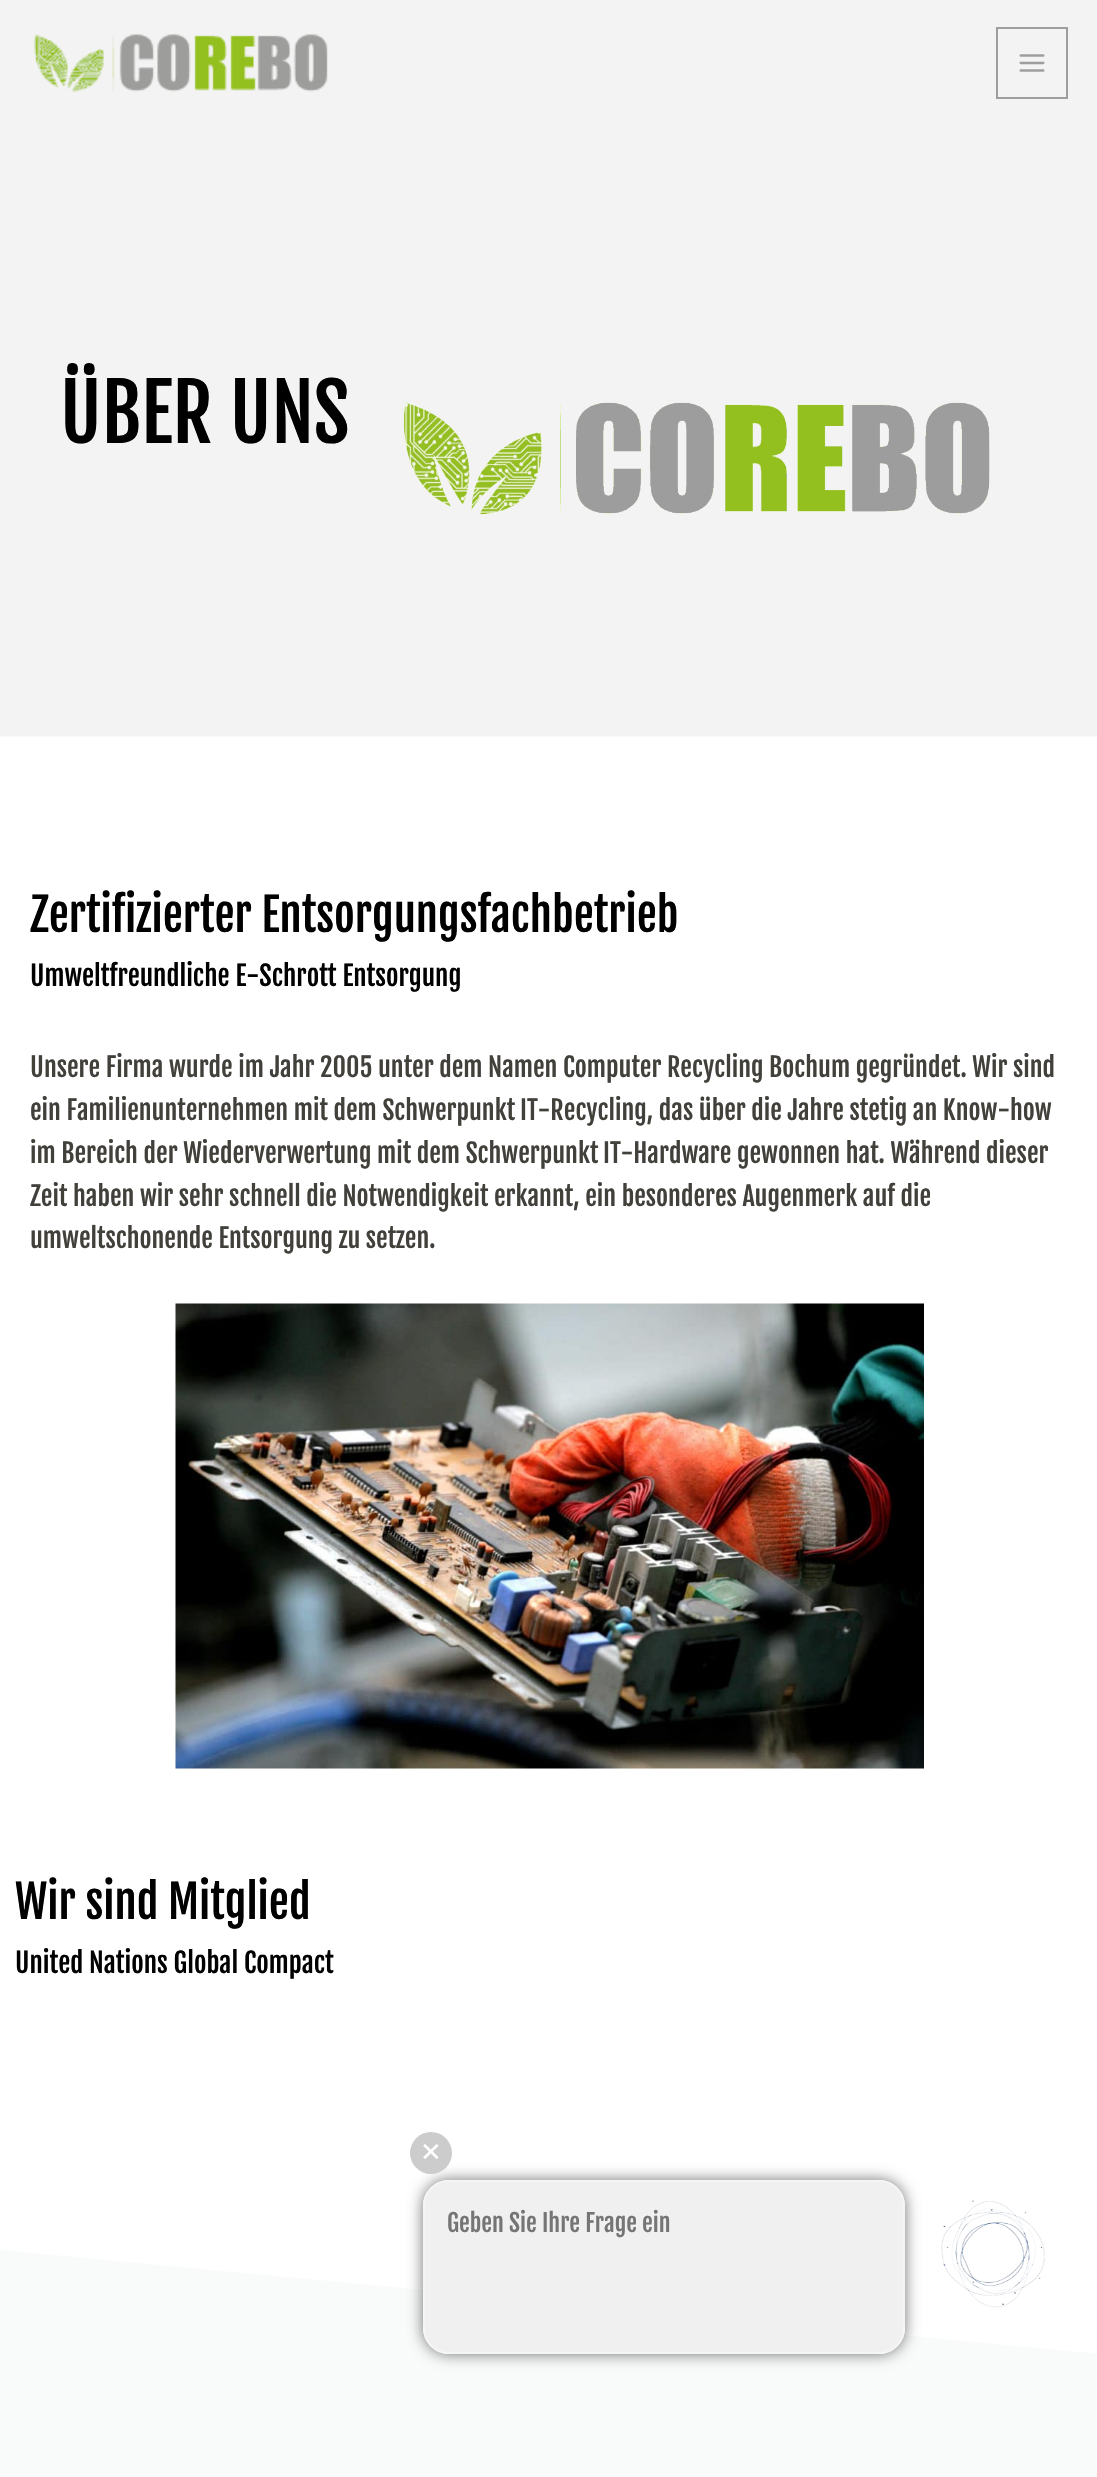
void draw(SkCanvas* canvas) {
    SkPaint paint;
    paint.setAntiAlias(true);
    canvas->clear(0xFFFFFFFF);
    paint.setColor(0xFFF3F3F3);
    canvas->drawRect(SkRect::MakeXYWH(0, 0, 1097, 180), paint);
    canvas->drawImageRect(SkImages::DeferredFromEncodedData(SkData::MakeFromFileName("img1.png")), SkRect::MakeXYWH(34, 34, 294, 58), SkSamplingOptions());
    paint.setStyle(SkPaint::kStroke_Style);
    paint.setStrokeWidth(2);
    paint.setColor(0xFF9D9D9C);
    canvas->drawRect(SkRect::MakeXYWH(997, 28, 70, 70), paint);
    canvas->drawImageRect(SkImages::DeferredFromEncodedData(SkData::MakeFromFileName("img2.png")), SkRect::MakeXYWH(1019, 54, 26, 18), SkSamplingOptions());
    canvas->drawImageRect(SkImages::DeferredFromEncodedData(SkData::MakeFromFileName("img3.png")), SkRect::MakeXYWH(0, 180, 1097, 557), SkSamplingOptions());
    SkFont font1(fontMgr->matchFamilyStyle("Fjalla One", SkFontStyle::Normal()), 78);
    font1.setSubpixel(true);
    paint.setStyle(SkPaint::kFill_Style);
    paint.setColor(0xFF000000);
    canvas->drawString("ÜBER UNS", 60, 443, font1, paint);
    SkFont font2(fontMgr->matchFamilyStyle("Fjalla One", SkFontStyle::Normal()), 45);
    font2.setSubpixel(true);
    canvas->drawString("Zertifizierter Entsorgungsfachbetrieb", 30, 932, font2, paint);
    SkFont font3(fontMgr->matchFamilyStyle("Fjalla One", SkFontStyle::Normal()), 27);
    font3.setSubpixel(true);
    canvas->drawString("Umweltfreundliche E-Schrott Entsorgung", 30, 986, font3, paint);
    SkFont font4(fontMgr->matchFamilyStyle("Fjalla One", SkFontStyle::Normal()), 26);
    font4.setSubpixel(true);
    paint.setColor(0xFF42403B);
    canvas->drawString("Unsere Firma wurde im Jahr 2005 unter dem", 30, 1077, font4, paint);
    canvas->drawString("Namen Computer Recycling Bochum gegründet. Wir sind", 488, 1077, font4, paint);
    canvas->drawString("ein Familienunternehmen mit dem Schwerpunkt", 30, 1120, font4, paint);
    canvas->drawString("IT-Recycling, das über die Jahre stetig an Know-how", 520, 1120, font4, paint);
    canvas->drawString("im Bereich der Wiederverwertung mit dem Schwerpunkt", 30, 1163, font4, paint);
    canvas->drawString("IT-Hardware gewonnen hat. Während", 603, 1163, font4, paint);
    canvas->drawString("dieser", 986, 1163, font4, paint);
    canvas->drawString("Zeit haben wir sehr schnell die Notwendigkeit erkannt, ein besonderes Augenmerk auf die", 30, 1206, font4, paint);
    canvas->drawString("umweltschonende Entsorgung zu setzen.", 30, 1248, font4, paint);
    canvas->drawImageRect(SkImages::DeferredFromEncodedData(SkData::MakeFromFileName("img4.png")), SkRect::MakeXYWH(175, 1303, 749, 466), SkSamplingOptions());
    paint.setColor(0xFF000000);
    canvas->drawString("Wir sind Mitglied", 15, 1919, font2, paint);
    canvas->drawString("United Nations Global Compact", 15, 1973, font3, paint);
    paint.setColor(0xFFF9FAFA);
    canvas->drawPath(SkPathBuilder().moveTo(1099, 2354).lineTo(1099, 2360).lineTo(-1, 2360).lineTo(-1, 2250).close().detach(), paint);
    canvas->drawRect(SkRect::MakeXYWH(0, 2360, 1097, 117), paint);
    canvas->save();
    canvas->clipPath(SkPathBuilder(SkPathFillType::kEvenOdd).moveTo(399, 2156).lineTo(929, 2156).lineTo(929, 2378).lineTo(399, 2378).close().moveTo(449, 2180).lineTo(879, 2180).cubicTo(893.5f, 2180, 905, 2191.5f, 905, 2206).lineTo(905, 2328).cubicTo(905, 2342.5f, 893.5f, 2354, 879, 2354).lineTo(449, 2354).cubicTo(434.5f, 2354, 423, 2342.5f, 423, 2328).lineTo(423, 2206).cubicTo(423, 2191.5f, 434.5f, 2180, 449, 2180).close().detach(), true);
    paint.setColor(0x8C000000);
    paint.setMaskFilter(SkMaskFilter::MakeBlur(kNormal_SkBlurStyle, 7.5f));
    canvas->drawRoundRect(SkRect::MakeXYWH(423, 2180, 482, 174), 26, 26, paint);
    paint.setMaskFilter(nullptr);
    canvas->restore();
    paint.setColor(0xFFCCCCCC);
    canvas->drawCircle(431, 2153, 21, paint);
    SkFont font5(fontMgr->matchFamilyStyle("DejaVu Sans", SkFontStyle::Normal()), 26);
    font5.setSubpixel(true);
    paint.setColor(0xFFFFFFFF);
    canvas->drawString("✕", 420, 2161, font5, paint);
    paint.setColor(0xEBEFEFEF);
    canvas->drawRoundRect(SkRect::MakeXYWH(424, 2181, 480, 172), 25, 25, paint);
    paint.setStyle(SkPaint::kStroke_Style);
    paint.setColor(0xFFF5F5F5);
    canvas->drawRoundRect(SkRect::MakeXYWH(424, 2181, 480, 172), 25, 25, paint);
    SkFont font6(fontMgr->matchFamilyStyle("Fjalla One", SkFontStyle::Normal()), 24);
    font6.setSubpixel(true);
    paint.setStyle(SkPaint::kFill_Style);
    paint.setColor(0xFF757575);
    canvas->drawString("Geben Sie Ihre Frage ein", 447, 2232, font6, paint);
    canvas->drawImageRect(SkImages::DeferredFromEncodedData(SkData::MakeFromFileName("img5.png")), SkRect::MakeXYWH(941, 2200, 104, 108), SkSamplingOptions());
}
